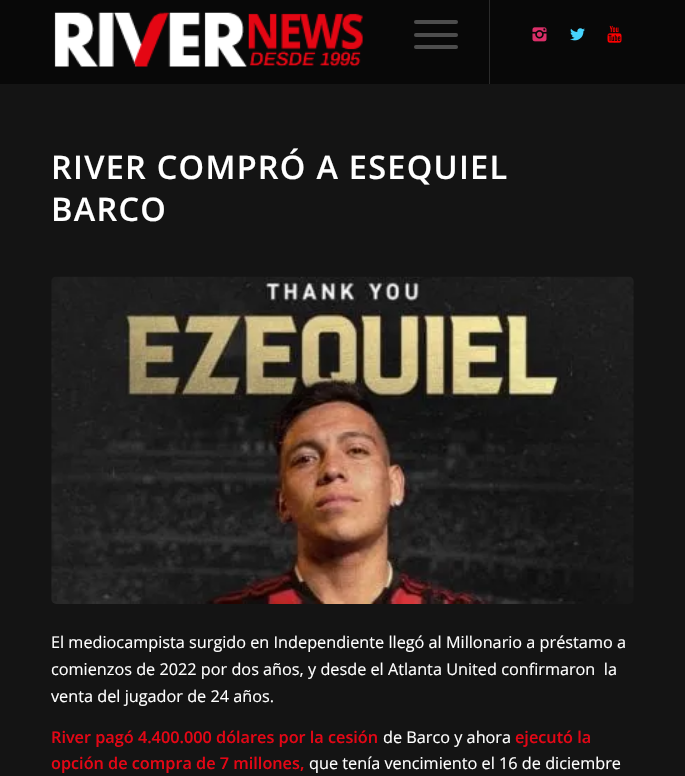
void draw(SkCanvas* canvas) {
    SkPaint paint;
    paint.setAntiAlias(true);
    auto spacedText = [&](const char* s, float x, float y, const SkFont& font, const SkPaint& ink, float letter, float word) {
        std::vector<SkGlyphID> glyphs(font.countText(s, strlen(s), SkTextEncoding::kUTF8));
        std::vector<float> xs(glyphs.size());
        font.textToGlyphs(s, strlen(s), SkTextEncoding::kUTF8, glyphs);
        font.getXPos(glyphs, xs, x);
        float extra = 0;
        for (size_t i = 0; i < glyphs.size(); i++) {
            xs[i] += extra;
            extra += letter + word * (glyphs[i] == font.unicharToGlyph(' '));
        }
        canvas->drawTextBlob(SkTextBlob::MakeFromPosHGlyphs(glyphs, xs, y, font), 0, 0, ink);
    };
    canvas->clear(0xFF141414);
    paint.setColor(0xFF080808);
    canvas->drawRect(SkRect::MakeXYWH(0, 0, 685, 84), paint);
    canvas->drawImageRect(SkImages::DeferredFromEncodedData(SkData::MakeFromFileName("img1.png")), SkRect::MakeXYWH(54, 12, 309, 55), SkSamplingOptions());
    paint.setColor(0xFF2B2B2B);
    canvas->drawRect(SkRect::MakeXYWH(489, 0, 1, 84), paint);
    paint.setColor(0xFF4D4D4D);
    canvas->drawRoundRect(SkRect::MakeXYWH(414, 33, 44, 4), 2, 2, paint);
    canvas->drawRoundRect(SkRect::MakeXYWH(414, 20, 44, 4), 2, 2, paint);
    canvas->drawRoundRect(SkRect::MakeXYWH(414, 45, 44, 4), 2, 2, paint);
    canvas->drawImageRect(SkImages::DeferredFromEncodedData(SkData::MakeFromFileName("img2.png")), SkRect::MakeXYWH(532, 27, 15, 15), SkSamplingOptions());
    canvas->drawImageRect(SkImages::DeferredFromEncodedData(SkData::MakeFromFileName("img3.png")), SkRect::MakeXYWH(570, 28, 15, 13), SkSamplingOptions());
    canvas->drawImageRect(SkImages::DeferredFromEncodedData(SkData::MakeFromFileName("img4.png")), SkRect::MakeXYWH(607, 25, 15, 18), SkSamplingOptions());
    SkFont font1(fontMgr->matchFamilyStyle("Open Sans", SkFontStyle(600, SkFontStyle::kNormal_Width, SkFontStyle::kUpright_Slant)), 32.5f);
    font1.setSubpixel(true);
    paint.setColor(0xFFFFFFFF);
    spacedText("RIVER COMPRÓ A ESEQUIEL", 51, 179, font1, paint, 1.25f, 0);
    spacedText("BARCO", 51, 221, font1, paint, 1.25f, 0);
    canvas->drawImageRect(SkImages::DeferredFromEncodedData(SkData::MakeFromFileName("img5.png")), SkRect::MakeXYWH(51, 276, 583, 328), SkSamplingOptions());
    SkFont font2(fontMgr->matchFamilyStyle("Open Sans", SkFontStyle::Normal()), 16.25f);
    font2.setSubpixel(true);
    canvas->drawString("El mediocampista surgido en Independiente llegó al Millonario a préstamo a", 51, 648, font2, paint);
    canvas->drawString("comienzos de 2022 por dos años, y desde el Atlanta United confirmaron  la", 51, 675, font2, paint);
    canvas->drawString("venta del jugador de 24 años.", 51, 702, font2, paint);
    SkFont font3(fontMgr->matchFamilyStyle("Open Sans", SkFontStyle(600, SkFontStyle::kNormal_Width, SkFontStyle::kUpright_Slant)), 16.25f);
    font3.setSubpixel(true);
    paint.setColor(0xFFE40615);
    canvas->drawString("River pagó 4.400.000 dólares por la cesión", 51, 743, font3, paint);
    paint.setColor(0xFFFFFFFF);
    canvas->drawString("de Barco y ahora", 383, 743, font2, paint);
    paint.setColor(0xFFE40615);
    canvas->drawString("ejecutó la", 515, 743, font3, paint);
    canvas->drawString("opción de compra de 7 millones,", 51, 769, font3, paint);
    paint.setColor(0xFFFFFFFF);
    canvas->drawString("que tenía vencimiento el 16 de diciembre", 309, 769, font2, paint);
}
